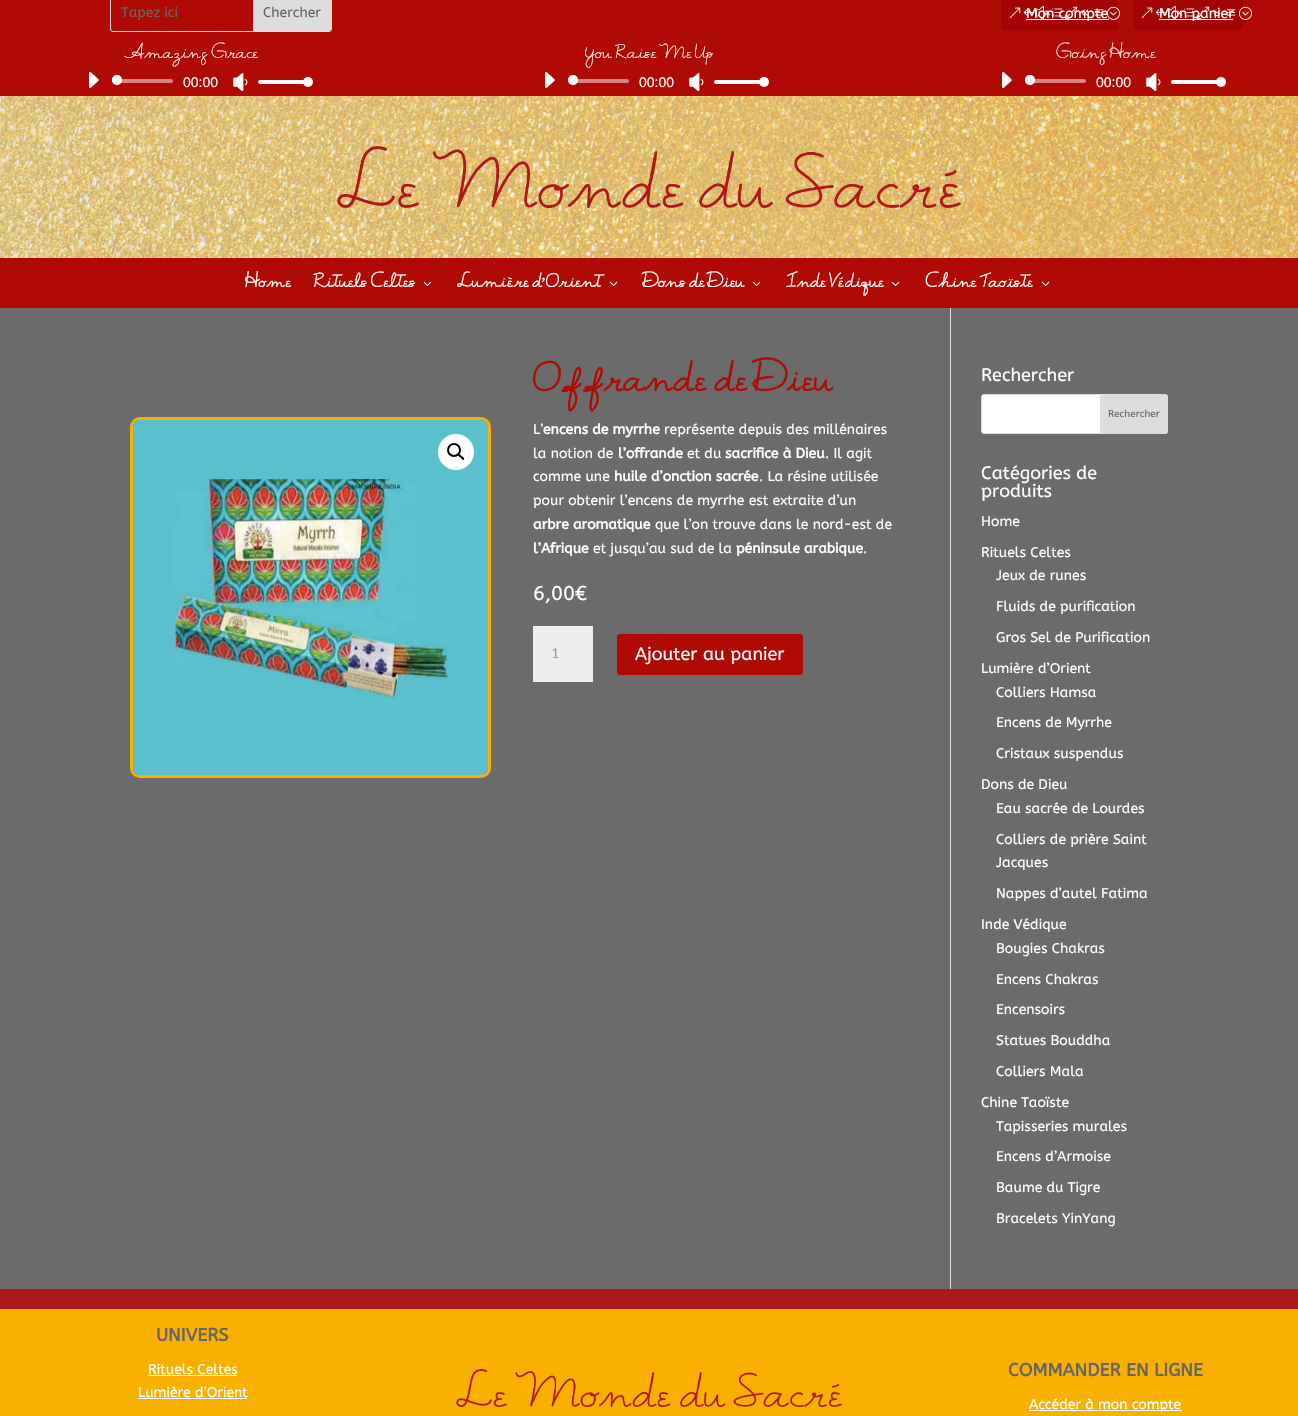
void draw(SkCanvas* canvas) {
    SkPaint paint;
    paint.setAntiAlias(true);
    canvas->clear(0xFF6B6B6B);
    paint.setColor(0xFFAF0B04);
    canvas->drawRect(SkRect::MakeXYWH(0, 0, 1298, 96), paint);
    paint.setStyle(SkPaint::kStroke_Style);
    paint.setStrokeWidth(1);
    paint.setColor(0xFFDDDDDD);
    canvas->drawRoundRect(SkRect::MakeXYWH(110.5f, -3.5f, 221, 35), 2.5f, 2.5f, paint);
    SkFont font1(fontMgr->matchFamilyStyle("ABeeZee", SkFontStyle::Normal()), 14);
    font1.setSubpixel(true);
    paint.setStyle(SkPaint::kFill_Style);
    paint.setColor(0xFF666666);
    canvas->drawString("Tapez ici", 121, 17, font1, paint);
    paint.setColor(0xFFDDDDDD);
    canvas->drawPath(SkPathBuilder().moveTo(253, -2).lineTo(329, -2).cubicTo(330, -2, 331, -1, 331, 0).lineTo(331, 29).cubicTo(331, 30, 330, 31, 329, 31).lineTo(253, 31).close().detach(), paint);
    paint.setColor(0xFF666666);
    canvas->drawString("Chercher", 263, 17, font1, paint);
    paint.setColor(0xFFA30303);
    canvas->drawRoundRect(SkRect::MakeXYWH(1001, -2, 117, 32), 3, 3, paint);
    paint.setColor(0xFFFFFFFF);
    canvas->drawRect(SkRect::MakeXYWH(1026, 19, 83, 1), paint);
    canvas->drawString("Mon compte", 1026, 18, font1, paint);
    canvas->drawImageRect(SkImages::DeferredFromEncodedData(SkData::MakeFromFileName("img1.png")), SkRect::MakeXYWH(1009, 5, 111, 15), SkSamplingOptions());
    paint.setColor(0xFFA30303);
    canvas->drawRoundRect(SkRect::MakeXYWH(1134, -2, 109, 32), 3, 3, paint);
    paint.setColor(0xFFFFFFFF);
    canvas->drawRect(SkRect::MakeXYWH(1159, 19, 74, 1), paint);
    canvas->drawString("Mon panier", 1159, 18, font1, paint);
    canvas->drawImageRect(SkImages::DeferredFromEncodedData(SkData::MakeFromFileName("img2.png")), SkRect::MakeXYWH(1141, 5, 111, 15), SkSamplingOptions());
    SkFont font2(fontMgr->matchFamilyStyle("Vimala", SkFontStyle::Normal()), 14);
    font2.setSubpixel(true);
    canvas->drawString("Amazing Grace", 127, 58, font2, paint);
    canvas->drawImageRect(SkImages::DeferredFromEncodedData(SkData::MakeFromFileName("img3.png")), SkRect::MakeXYWH(89, 72, 10, 16), SkSamplingOptions());
    paint.setColor(0xFFD78582);
    canvas->drawRoundRect(SkRect::MakeXYWH(119, 79, 54, 4), 2, 2, paint);
    paint.setColor(0xE6FFFFFF);
    canvas->drawCircle(117, 80, 5, paint);
    paint.setStyle(SkPaint::kStroke_Style);
    paint.setStrokeWidth(4);
    canvas->drawCircle(117, 80, 3, paint);
    SkFont font3(fontMgr->matchFamilyStyle("Liberation Sans", SkFontStyle::Normal()), 14);
    font3.setSubpixel(true);
    paint.setStyle(SkPaint::kFill_Style);
    paint.setColor(0xFFFFFFFF);
    canvas->drawString("00:00", 183, 87, font3, paint);
    canvas->drawImageRect(SkImages::DeferredFromEncodedData(SkData::MakeFromFileName("img4.png")), SkRect::MakeXYWH(233, 73, 15, 18), SkSamplingOptions());
    canvas->drawRoundRect(SkRect::MakeXYWH(258, 80, 50, 4), 2, 2, paint);
    canvas->drawCircle(308, 82, 5, paint);
    canvas->drawString("You Raise Me Up", 585, 58, font2, paint);
    canvas->drawImageRect(SkImages::DeferredFromEncodedData(SkData::MakeFromFileName("img3.png")), SkRect::MakeXYWH(545, 72, 10, 16), SkSamplingOptions());
    paint.setColor(0xFFD78582);
    canvas->drawRoundRect(SkRect::MakeXYWH(575, 79, 54, 4), 2, 2, paint);
    paint.setColor(0xE6FFFFFF);
    canvas->drawCircle(573, 80, 5, paint);
    paint.setStyle(SkPaint::kStroke_Style);
    canvas->drawCircle(573, 80, 3, paint);
    paint.setStyle(SkPaint::kFill_Style);
    paint.setColor(0xFFFFFFFF);
    canvas->drawString("00:00", 639, 87, font3, paint);
    canvas->drawImageRect(SkImages::DeferredFromEncodedData(SkData::MakeFromFileName("img4.png")), SkRect::MakeXYWH(689, 73, 15, 18), SkSamplingOptions());
    canvas->drawRoundRect(SkRect::MakeXYWH(714, 80, 50, 4), 2, 2, paint);
    canvas->drawCircle(764, 82, 5, paint);
    canvas->drawString("Going Home", 1056, 58, font2, paint);
    canvas->drawImageRect(SkImages::DeferredFromEncodedData(SkData::MakeFromFileName("img3.png")), SkRect::MakeXYWH(1002, 72, 10, 16), SkSamplingOptions());
    paint.setColor(0xFFD78582);
    canvas->drawRoundRect(SkRect::MakeXYWH(1032, 79, 54, 4), 2, 2, paint);
    paint.setColor(0xE6FFFFFF);
    canvas->drawCircle(1030, 80, 5, paint);
    paint.setStyle(SkPaint::kStroke_Style);
    canvas->drawCircle(1030, 80, 3, paint);
    paint.setStyle(SkPaint::kFill_Style);
    paint.setColor(0xFFFFFFFF);
    canvas->drawString("00:00", 1096, 87, font3, paint);
    canvas->drawImageRect(SkImages::DeferredFromEncodedData(SkData::MakeFromFileName("img4.png")), SkRect::MakeXYWH(1146, 73, 15, 18), SkSamplingOptions());
    canvas->drawRoundRect(SkRect::MakeXYWH(1171, 80, 50, 4), 2, 2, paint);
    canvas->drawCircle(1221, 82, 5, paint);
    canvas->drawImageRect(SkImages::DeferredFromEncodedData(SkData::MakeFromFileName("img5.png")), SkRect::MakeXYWH(0, 96, 1298, 162), SkSamplingOptions());
    canvas->drawImageRect(SkImages::DeferredFromEncodedData(SkData::MakeFromFileName("img6.png")), SkRect::MakeXYWH(337, 146, 624, 62), SkSamplingOptions());
    paint.setColor(0xFFAF0B04);
    canvas->drawRect(SkRect::MakeXYWH(0, 258, 1298, 50), paint);
    SkFont font4(fontMgr->matchFamilyStyle("Vimala", SkFontStyle::Bold()), 14);
    font4.setSubpixel(true);
    paint.setColor(0xFFFFFFFF);
    canvas->drawString("Home", 245, 287, font4, paint);
    canvas->drawString("Rituels Celtes", 313, 287, font4, paint);
    canvas->drawImageRect(SkImages::DeferredFromEncodedData(SkData::MakeFromFileName("img7.png")), SkRect::MakeXYWH(423, 281, 9, 5), SkSamplingOptions());
    canvas->drawString("Lumière d", 457, 287, font4, paint);
    SkFont font5(fontMgr->matchFamilyStyle("Liberation Serif", SkFontStyle::Bold()), 14);
    font5.setSubpixel(true);
    canvas->drawString("’", 541, 287, font5, paint);
    canvas->drawString("Orient", 546, 287, font4, paint);
    canvas->drawImageRect(SkImages::DeferredFromEncodedData(SkData::MakeFromFileName("img7.png")), SkRect::MakeXYWH(609, 281, 9, 5), SkSamplingOptions());
    canvas->drawString("Dons de Dieu", 643, 287, font4, paint);
    canvas->drawImageRect(SkImages::DeferredFromEncodedData(SkData::MakeFromFileName("img7.png")), SkRect::MakeXYWH(752, 281, 9, 5), SkSamplingOptions());
    canvas->drawString("Inde Védique", 786, 287, font4, paint);
    canvas->drawImageRect(SkImages::DeferredFromEncodedData(SkData::MakeFromFileName("img7.png")), SkRect::MakeXYWH(891, 281, 9, 5), SkSamplingOptions());
    canvas->drawString("Chine Taoïste", 925, 287, font4, paint);
    canvas->drawImageRect(SkImages::DeferredFromEncodedData(SkData::MakeFromFileName("img7.png")), SkRect::MakeXYWH(1041, 281, 9, 5), SkSamplingOptions());
    paint.setColor(0xFFE2E2E2);
    canvas->drawRect(SkRect::MakeXYWH(950, 308, 1, 981), paint);
    paint.setStyle(SkPaint::kStroke_Style);
    paint.setStrokeWidth(3);
    paint.setColor(0xFFF9B000);
    canvas->drawRoundRect(SkRect::MakeXYWH(131.5f, 418.5f, 358, 358), 8.5f, 8.5f, paint);
    canvas->drawImageRect(SkImages::DeferredFromEncodedData(SkData::MakeFromFileName("img8.png")), SkRect::MakeXYWH(133, 420, 355, 355), SkSamplingOptions());
    paint.setStyle(SkPaint::kFill_Style);
    paint.setColor(0xFFFFFFFF);
    canvas->drawCircle(456, 452, 18, paint);
    paint.setStyle(SkPaint::kStroke_Style);
    paint.setStrokeWidth(2);
    paint.setColor(0xFF000000);
    canvas->drawCircle(454, 450, 6, paint);
    paint.setStyle(SkPaint::kFill_Style);
    canvas->drawPath(SkPathBuilder().moveTo(458, 454).cubicTo(459.5f, 453, 461, 455.5f, 461.5f, 456).cubicTo(462.5f, 456.5f, 465, 458.5f, 464, 459.5f).cubicTo(462.5f, 461, 461, 458, 460.5f, 457.5f).cubicTo(459.5f, 457, 457, 455, 458, 454).close().detach(), paint);
    SkFont font6(fontMgr->matchFamilyStyle("Vimala", SkFontStyle::Bold()), 30);
    font6.setSubpixel(true);
    paint.setColor(0xFFAF0B04);
    canvas->drawString("Offrande de Dieu", 533, 391, font6, paint);
    paint.setColor(0xFFFFFFFF);
    canvas->drawString("L’", 533, 434, font1, paint);
    SkFont font7(fontMgr->matchFamilyStyle("ABeeZee", SkFontStyle::Bold()), 14);
    font7.setSubpixel(true);
    canvas->drawString("encens de myrrhe", 543, 434, font7, paint);
    canvas->drawString("représente depuis des millénaires", 664, 434, font1, paint);
    canvas->drawString("la notion de", 533, 458, font1, paint);
    canvas->drawString("l’offrande", 618, 458, font7, paint);
    canvas->drawString("et du", 687, 458, font1, paint);
    canvas->drawString("sacrifice à Dieu", 725, 458, font7, paint);
    canvas->drawString(". Il agit", 825, 458, font1, paint);
    canvas->drawString("comme une", 533, 481, font1, paint);
    canvas->drawString("huile d’onction sacrée", 614, 481, font7, paint);
    canvas->drawString(". La résine utilisée", 759, 481, font1, paint);
    canvas->drawString("pour obtenir l’encens de myrrhe est extraite d’un", 533, 505, font1, paint);
    canvas->drawString("arbre aromatique", 533, 529, font7, paint);
    canvas->drawString("que l’on trouve dans le nord-est de", 655, 529, font1, paint);
    canvas->drawString("l’Afrique", 533, 553, font7, paint);
    canvas->drawString("et jusqu’au sud de la", 593, 553, font1, paint);
    canvas->drawString("péninsule arabique", 736, 553, font7, paint);
    canvas->drawString(".", 863, 553, font1, paint);
    SkFont font8(fontMgr->matchFamilyStyle("ABeeZee", SkFontStyle::Normal()), 20);
    font8.setSubpixel(true);
    canvas->drawString("6,00€", 533, 600, font8, paint);
    paint.setColor(0xFFEEEEEE);
    canvas->drawRect(SkRect::MakeXYWH(533, 626, 60, 56), paint);
    paint.setColor(0xFF999999);
    canvas->drawString("1", 551, 658, font1, paint);
    paint.setColor(0xFFAF0B04);
    canvas->drawRoundRect(SkRect::MakeXYWH(617, 634, 186, 41), 3, 3, paint);
    SkFont font9(fontMgr->matchFamilyStyle("ABeeZee", SkFontStyle::Normal()), 18);
    font9.setSubpixel(true);
    paint.setColor(0xFFFFFFFF);
    canvas->drawString("Ajouter au panier", 635, 660, font9, paint);
    canvas->drawString("Rechercher", 981, 381, font9, paint);
    canvas->drawRoundRect(SkRect::MakeXYWH(981.5f, 394.5f, 186, 39), 2.5f, 2.5f, paint);
    paint.setStyle(SkPaint::kStroke_Style);
    paint.setStrokeWidth(1);
    paint.setColor(0xFFDDDDDD);
    canvas->drawRoundRect(SkRect::MakeXYWH(981.5f, 394.5f, 186, 39), 2.5f, 2.5f, paint);
    paint.setStyle(SkPaint::kFill_Style);
    canvas->drawPath(SkPathBuilder().moveTo(1100.5f, 394.5f).lineTo(1165, 394.5f).cubicTo(1166.5f, 394.5f, 1167.5f, 395.5f, 1167.5f, 397).lineTo(1167.5f, 431).cubicTo(1167.5f, 432.5f, 1166.5f, 433.5f, 1165, 433.5f).lineTo(1100.5f, 433.5f).close().detach(), paint);
    paint.setStyle(SkPaint::kStroke_Style);
    canvas->drawPath(SkPathBuilder().moveTo(1100.5f, 394.5f).lineTo(1165, 394.5f).cubicTo(1166.5f, 394.5f, 1167.5f, 395.5f, 1167.5f, 397).lineTo(1167.5f, 431).cubicTo(1167.5f, 432.5f, 1166.5f, 433.5f, 1165, 433.5f).lineTo(1100.5f, 433.5f).close().detach(), paint);
    SkFont font10(fontMgr->matchFamilyStyle("ABeeZee", SkFontStyle::Normal()), 10);
    font10.setSubpixel(true);
    paint.setStyle(SkPaint::kFill_Style);
    paint.setColor(0xFF666666);
    canvas->drawString("Rechercher", 1108, 417, font10, paint);
    paint.setColor(0xFFFFFFFF);
    canvas->drawString("Catégories de", 981, 479, font9, paint);
    canvas->drawString("produits", 981, 497, font9, paint);
    canvas->drawString("Home", 981, 526, font1, paint);
    canvas->drawString("Rituels Celtes", 981, 557, font1, paint);
    canvas->drawString("Jeux de runes", 996, 580, font1, paint);
    canvas->drawString("Fluids de purification", 996, 611, font1, paint);
    canvas->drawString("Gros Sel de Purification", 996, 642, font1, paint);
    canvas->drawString("Lumière d’Orient", 981, 673, font1, paint);
    canvas->drawString("Colliers Hamsa", 996, 697, font1, paint);
    canvas->drawString("Encens de Myrrhe", 996, 727, font1, paint);
    canvas->drawString("Cristaux suspendus", 996, 758, font1, paint);
    canvas->drawString("Dons de Dieu", 981, 789, font1, paint);
    canvas->drawString("Eau sacrée de Lourdes", 996, 813, font1, paint);
    canvas->drawString("Colliers de prière Saint", 996, 844, font1, paint);
    canvas->drawString("Jacques", 996, 867, font1, paint);
    canvas->drawString("Nappes d’autel Fatima", 996, 898, font1, paint);
    canvas->drawString("Inde Védique", 981, 929, font1, paint);
    canvas->drawString("Bougies Chakras", 996, 953, font1, paint);
    canvas->drawString("Encens Chakras", 996, 984, font1, paint);
    canvas->drawString("Encensoirs", 996, 1014, font1, paint);
    canvas->drawString("Statues Bouddha", 996, 1045, font1, paint);
    canvas->drawString("Colliers Mala", 996, 1076, font1, paint);
    canvas->drawString("Chine Taoïste", 981, 1107, font1, paint);
    canvas->drawString("Tapisseries murales", 996, 1131, font1, paint);
    canvas->drawString("Encens d’Armoise", 996, 1161, font1, paint);
    canvas->drawString("Baume du Tigre", 996, 1192, font1, paint);
    canvas->drawString("Bracelets YinYang", 996, 1223, font1, paint);
    paint.setColor(0xFFAE1917);
    canvas->drawRect(SkRect::MakeXYWH(0, 1289, 1298, 20), paint);
    paint.setColor(0xFFF9B000);
    canvas->drawRect(SkRect::MakeXYWH(0, 1309, 1298, 107), paint);
    SkFont font11(fontMgr->matchFamilyStyle("ABeeZee", SkFontStyle::Bold()), 18);
    font11.setSubpixel(true);
    paint.setColor(0xFF666666);
    canvas->drawString("UNIVERS", 156, 1341, font11, paint);
    paint.setColor(0xFFFFFFFF);
    canvas->drawString("Rituels Celtes", 148, 1374, font1, paint);
    canvas->drawRect(SkRect::MakeXYWH(148, 1375, 89, 1), paint);
    canvas->drawString("Lumière d’Orient", 138, 1397, font1, paint);
    canvas->drawRect(SkRect::MakeXYWH(138, 1398, 109, 1), paint);
    canvas->drawImageRect(SkImages::DeferredFromEncodedData(SkData::MakeFromFileName("img9.png")), SkRect::MakeXYWH(456, 1369, 386, 38), SkSamplingOptions());
    paint.setColor(0xFF666666);
    canvas->drawString("COMMANDER EN LIGNE", 1008, 1376, font11, paint);
    paint.setColor(0xFFFFFFFF);
    canvas->drawRect(SkRect::MakeXYWH(1029, 1410, 153, 1), paint);
    canvas->drawString("Accéder à mon compte", 1029, 1409, font1, paint);
}
